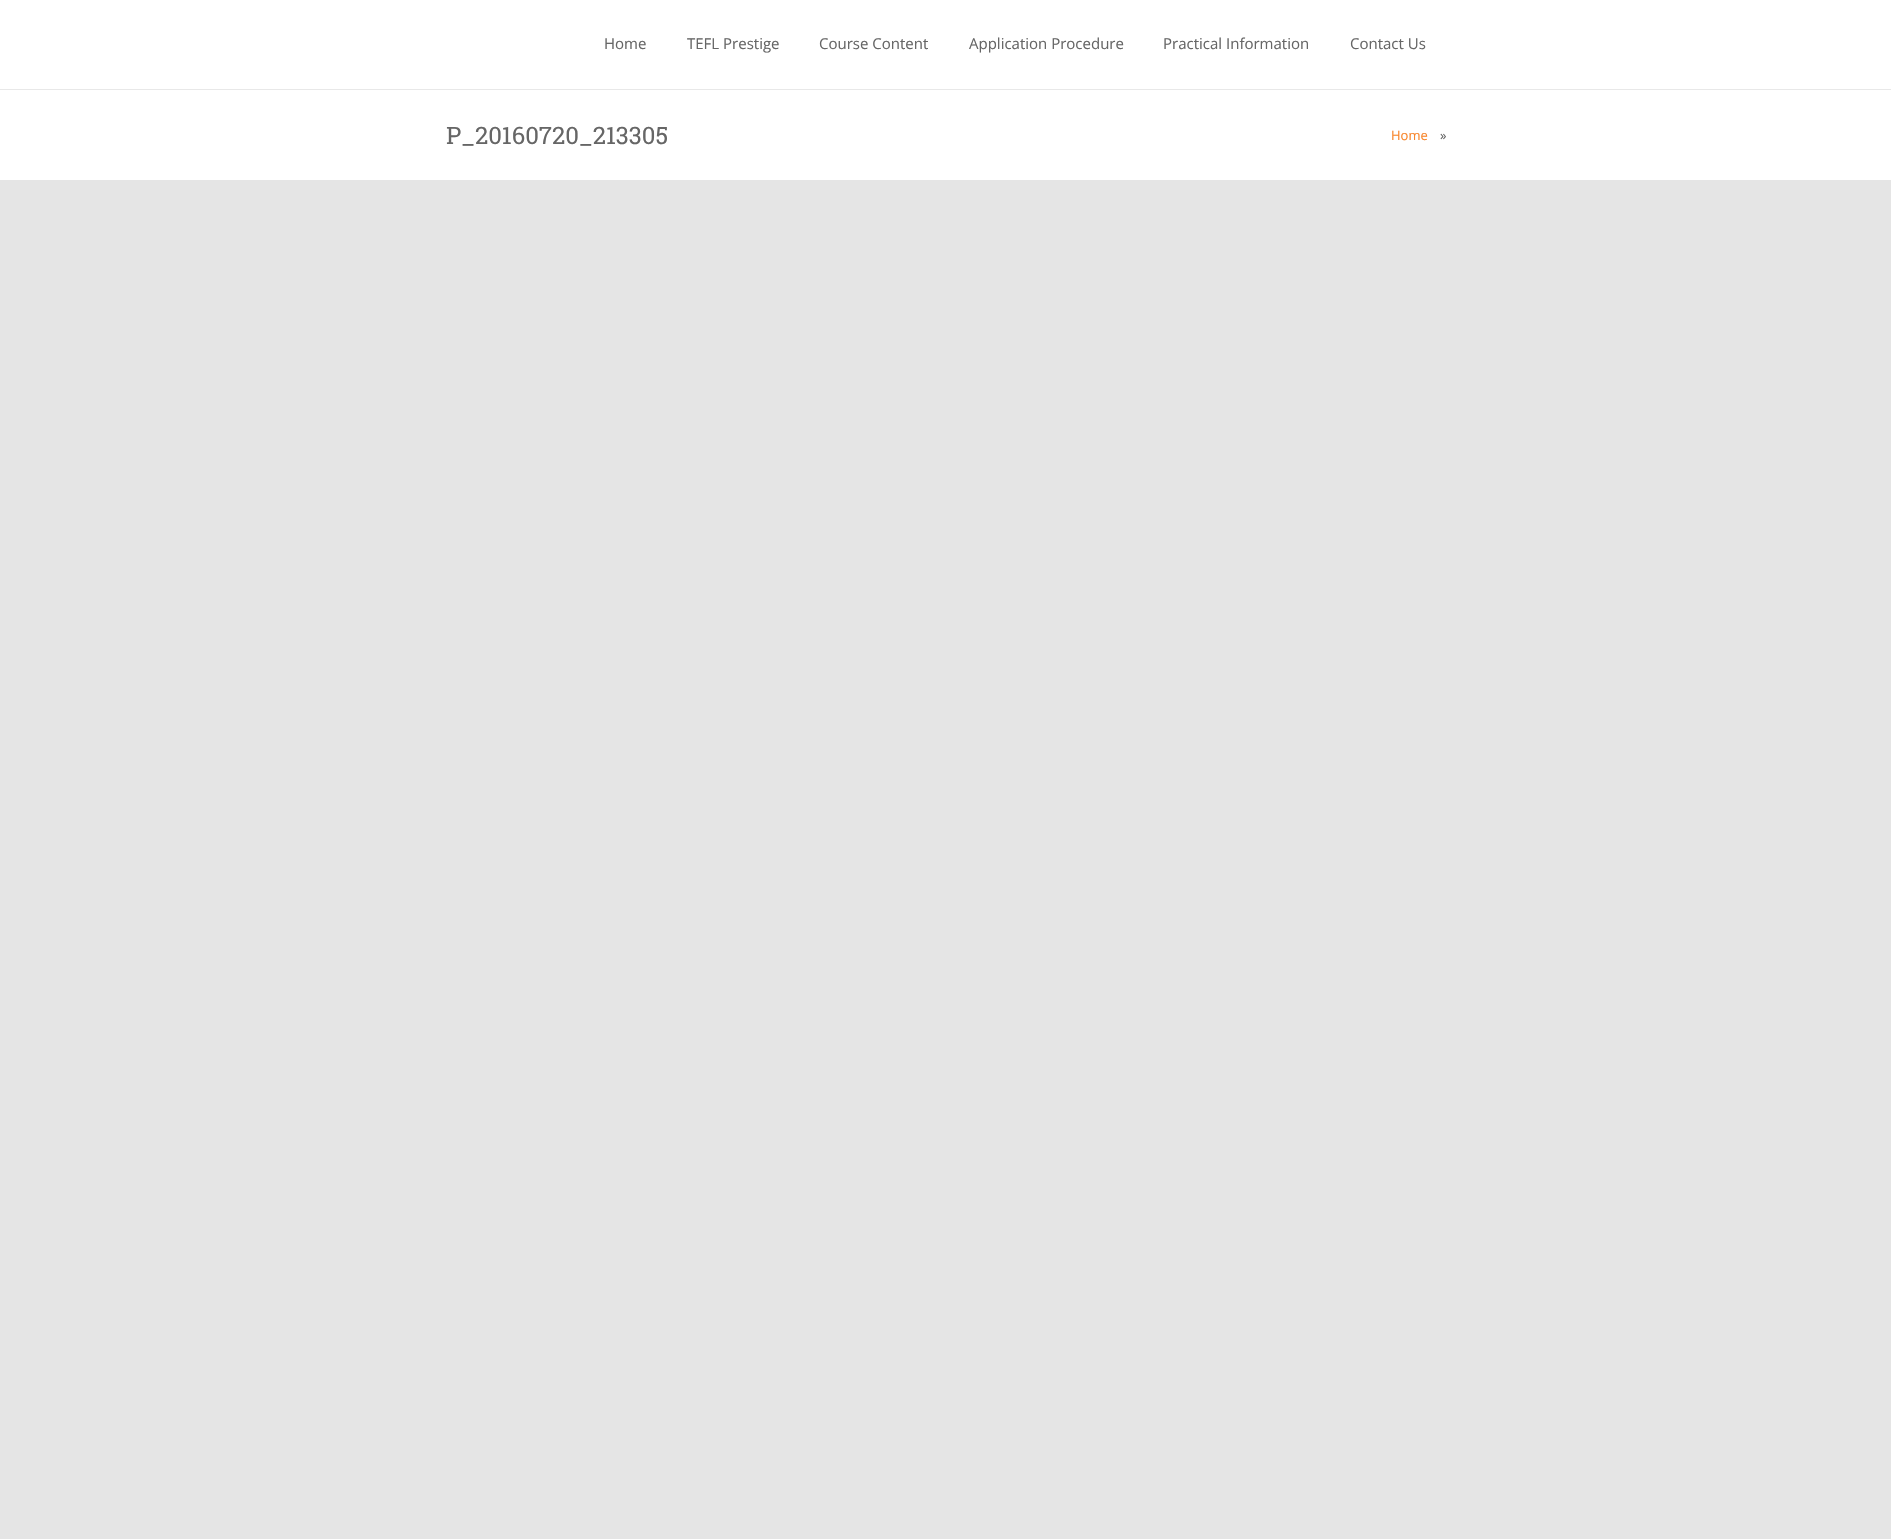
void draw(SkCanvas* canvas) {
    SkPaint paint;
    paint.setAntiAlias(true);
    canvas->clear(0xFFE5E5E5);
    paint.setColor(0xFFFFFFFF);
    canvas->drawRect(SkRect::MakeXYWH(0, 0, 1891, 180), paint);
    paint.setColor(0xFFE8E8E8);
    canvas->drawRect(SkRect::MakeXYWH(0, 89, 1891, 1), paint);
    SkFont font1(fontMgr->matchFamilyStyle("Open Sans", SkFontStyle::Normal()), 15);
    font1.setSubpixel(true);
    paint.setColor(0xFF666666);
    canvas->drawString("Home", 604, 49, font1, paint);
    canvas->drawString("TEFL Prestige", 687, 49, font1, paint);
    canvas->drawString("Course Content", 819, 49, font1, paint);
    canvas->drawString("Application Procedure", 969, 49, font1, paint);
    canvas->drawString("Practical Information", 1163, 49, font1, paint);
    canvas->drawString("Contact Us", 1350, 49, font1, paint);
    SkFont font2(fontMgr->matchFamilyStyle("Roboto Slab", SkFontStyle::Normal()), 24);
    font2.setSubpixel(true);
    canvas->drawString("P_20160720_213305", 446, 144, font2, paint);
    SkFont font3(fontMgr->matchFamilyStyle("Open Sans", SkFontStyle::Normal()), 13);
    font3.setSubpixel(true);
    paint.setColor(0xFFF8862C);
    canvas->drawString("Home", 1391, 140, font3, paint);
    paint.setColor(0xFF666666);
    canvas->drawString("»", 1440, 140, font3, paint);
}
